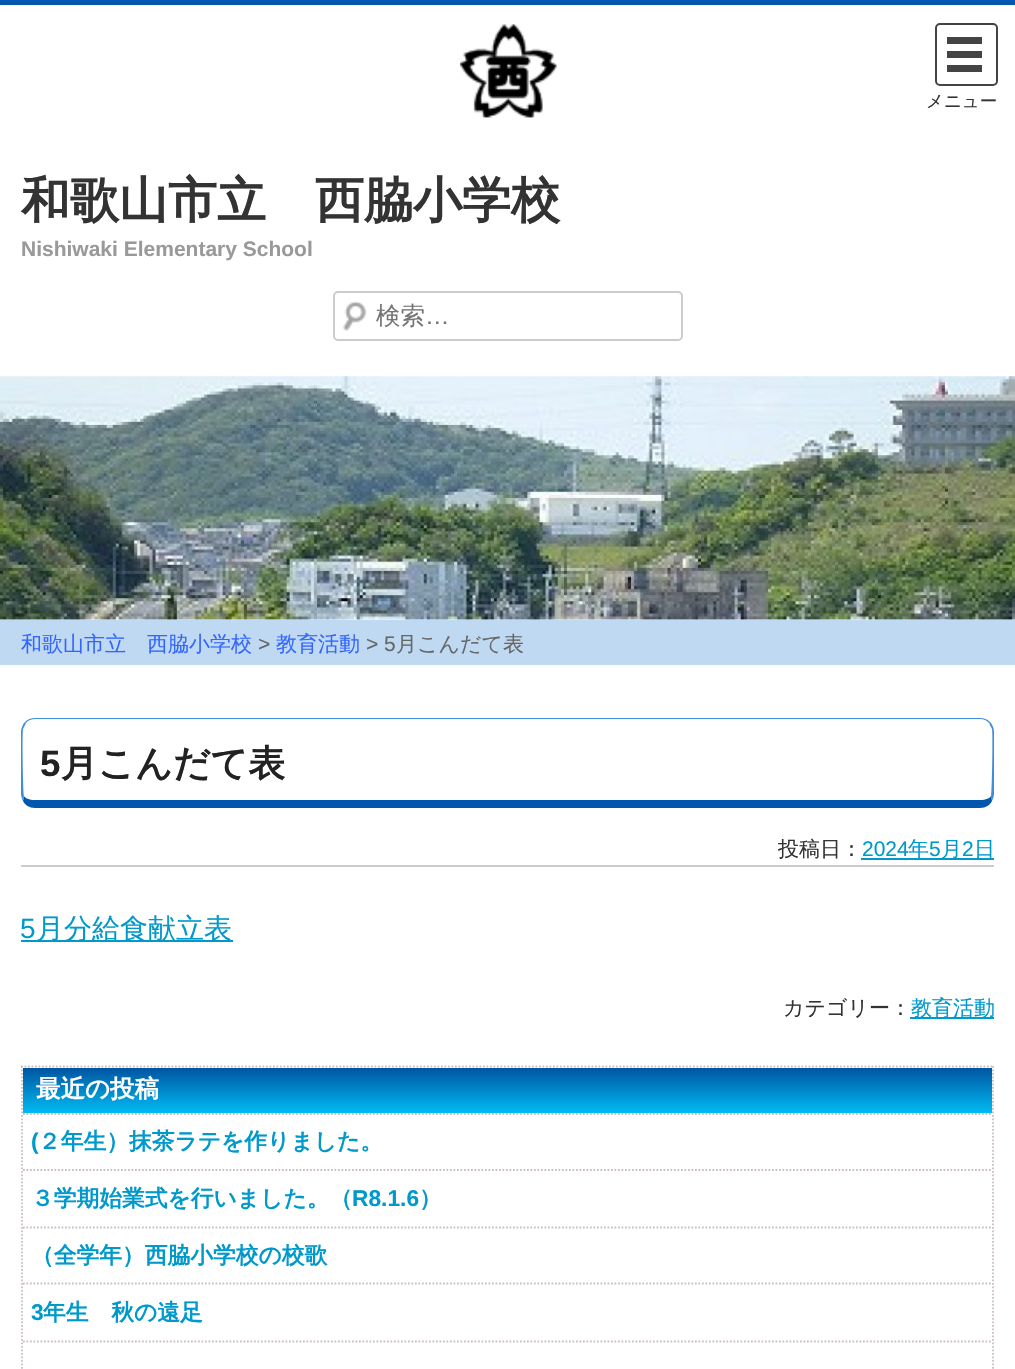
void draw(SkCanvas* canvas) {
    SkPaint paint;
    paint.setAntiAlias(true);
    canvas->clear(0xFFFFFFFF);
    paint.setColor(0xFF0057AD);
    canvas->drawRect(SkRect::MakeXYWH(0, 0, 1015, 5), paint);
    paint.setStyle(SkPaint::kStroke_Style);
    paint.setStrokeWidth(2);
    paint.setColor(0xFF444444);
    canvas->drawRoundRect(SkRect::MakeXYWH(936, 24, 61, 61), 4, 4, paint);
    paint.setStyle(SkPaint::kFill_Style);
    canvas->drawRect(SkRect::MakeXYWH(947, 37, 35, 7), paint);
    canvas->drawRect(SkRect::MakeXYWH(947, 51, 35, 7), paint);
    canvas->drawRect(SkRect::MakeXYWH(947, 65, 35, 7), paint);
    SkFont font1(fontMgr->matchFamilyStyle("WenQuanYi Zen Hei", SkFontStyle(500, SkFontStyle::kNormal_Width, SkFontStyle::kUpright_Slant)), 17.5f);
    font1.setSubpixel(true);
    paint.setColor(0xFF333333);
    canvas->drawString("メニュー", 926, 107, font1, paint);
    canvas->drawImageRect(SkImages::DeferredFromEncodedData(SkData::MakeFromFileName("img1.png")), SkRect::MakeXYWH(460, 24, 97, 94), SkSamplingOptions());
    SkFont font2(fontMgr->matchFamilyStyle("WenQuanYi Zen Hei", SkFontStyle::Bold()), 49);
    font2.setSubpixel(true);
    canvas->drawString("和歌山市立　西脇小学校", 21, 217, font2, paint);
    SkFont font3(fontMgr->matchFamilyStyle("Liberation Sans", SkFontStyle::Bold()), 21);
    font3.setSubpixel(true);
    paint.setColor(0xFF999999);
    canvas->drawString("Nishiwaki Elementary School", 21, 256, font3, paint);
    canvas->drawImageRect(SkImages::DeferredFromEncodedData(SkData::MakeFromFileName("img2.png")), SkRect::MakeXYWH(342, 301, 25, 30), SkSamplingOptions());
    paint.setStyle(SkPaint::kStroke_Style);
    paint.setColor(0xFFCCCCCC);
    canvas->drawRoundRect(SkRect::MakeXYWH(334, 292, 348, 48), 4, 4, paint);
    SkFont font4(fontMgr->matchFamilyStyle("WenQuanYi Zen Hei", SkFontStyle(500, SkFontStyle::kNormal_Width, SkFontStyle::kUpright_Slant)), 24.5f);
    font4.setSubpixel(true);
    paint.setStyle(SkPaint::kFill_Style);
    paint.setColor(0xFF757575);
    canvas->drawString("検索", 376, 324, font4, paint);
    SkFont font5(fontMgr->matchFamilyStyle("Liberation Sans", SkFontStyle::Normal()), 24.5f);
    font5.setSubpixel(true);
    canvas->drawString("…", 425, 324, font5, paint);
    canvas->drawImageRect(SkImages::DeferredFromEncodedData(SkData::MakeFromFileName("img3.png")), SkRect::MakeXYWH(0, 376, 1015, 244), SkSamplingOptions());
    paint.setColor(0xFFBFD9F2);
    canvas->drawRect(SkRect::MakeXYWH(0, 620, 1015, 45), paint);
    SkFont font6(fontMgr->matchFamilyStyle("WenQuanYi Zen Hei", SkFontStyle(500, SkFontStyle::kNormal_Width, SkFontStyle::kUpright_Slant)), 21);
    font6.setSubpixel(true);
    paint.setColor(0xFF3366FF);
    canvas->drawString("和歌山市立　西脇小学校", 21, 651, font6, paint);
    SkFont font7(fontMgr->matchFamilyStyle("Liberation Sans", SkFontStyle::Normal()), 21);
    font7.setSubpixel(true);
    paint.setColor(0xFF666666);
    canvas->drawString(">", 258, 651, font7, paint);
    paint.setColor(0xFF3366FF);
    canvas->drawString("教育活動", 276, 651, font6, paint);
    paint.setColor(0xFF666666);
    canvas->drawString("> 5", 366, 651, font7, paint);
    canvas->drawString("月こんだて表", 396, 651, font6, paint);
    paint.setColor(0xFF408DD9);
    canvas->drawPath(SkPathBuilder().moveTo(35, 718).cubicTo(31, 718, 28, 719, 25, 722).lineTo(26, 723).cubicTo(28, 720, 32, 719, 35, 719).lineTo(980, 719).cubicTo(984, 719, 986, 720, 989, 723).lineTo(990, 722).cubicTo(987, 719, 984, 718, 980, 718).close().detach(), paint);
    canvas->drawPath(SkPathBuilder().moveTo(990, 722).cubicTo(992, 724, 994, 728, 994, 732).lineTo(994, 794).cubicTo(994, 796, 993, 799, 992, 801).lineTo(991, 796).cubicTo(992, 794, 993, 734, 992, 729).cubicTo(991, 727, 990, 725, 989, 723).close().detach(), paint);
    paint.setColor(0xFF0057AD);
    canvas->drawPath(SkPathBuilder().moveTo(992, 801).cubicTo(990, 805, 986, 808, 980, 808).lineTo(35, 808).cubicTo(29, 808, 25, 805, 23, 801).lineTo(24, 796).cubicTo(25, 798, 29, 800, 35, 800).lineTo(980, 800).cubicTo(986, 800, 990, 798, 991, 796).close().detach(), paint);
    paint.setColor(0xFF408DD9);
    canvas->drawPath(SkPathBuilder().moveTo(21, 732).lineTo(21, 794).cubicTo(21, 796, 22, 799, 23, 801).lineTo(24, 796).cubicTo(23, 794, 22, 734, 23, 729).cubicTo(24, 727, 25, 725, 26, 723).lineTo(25, 722).cubicTo(23, 724, 21, 728, 21, 732).close().detach(), paint);
    SkFont font8(fontMgr->matchFamilyStyle("Liberation Sans", SkFontStyle::Bold()), 36.75f);
    font8.setSubpixel(true);
    paint.setColor(0xFF222222);
    canvas->drawString("5", 40, 776, font8, paint);
    SkFont font9(fontMgr->matchFamilyStyle("WenQuanYi Zen Hei", SkFontStyle::Bold()), 36.75f);
    font9.setSubpixel(true);
    canvas->drawString("月こんだて表", 61, 776, font9, paint);
    paint.setColor(0xFFCCCCCC);
    canvas->drawRect(SkRect::MakeXYWH(21, 865, 973, 2), paint);
    paint.setColor(0xFF333333);
    canvas->drawString("投稿日：", 778, 856, font6, paint);
    paint.setColor(0xFF0099CC);
    canvas->drawString("2024", 862, 856, font7, paint);
    canvas->drawRect(SkRect::MakeXYWH(861, 858, 133, 2), paint);
    canvas->drawString("年", 908, 856, font6, paint);
    canvas->drawString("5", 929, 856, font7, paint);
    canvas->drawString("月", 941, 856, font6, paint);
    canvas->drawString("2", 962, 856, font7, paint);
    canvas->drawString("日", 974, 856, font6, paint);
    SkFont font10(fontMgr->matchFamilyStyle("Liberation Sans", SkFontStyle::Normal()), 28);
    font10.setSubpixel(true);
    canvas->drawString("5", 20, 938, font10, paint);
    canvas->drawRect(SkRect::MakeXYWH(21, 940, 212, 2), paint);
    SkFont font11(fontMgr->matchFamilyStyle("WenQuanYi Zen Hei", SkFontStyle(500, SkFontStyle::kNormal_Width, SkFontStyle::kUpright_Slant)), 28);
    font11.setSubpixel(true);
    canvas->drawString("月分給食献立表", 36, 938, font11, paint);
    paint.setColor(0xFF333333);
    canvas->drawString("カテゴリー：", 783, 1015, font6, paint);
    paint.setColor(0xFF0099CC);
    canvas->drawRect(SkRect::MakeXYWH(910, 1017, 84, 2), paint);
    canvas->drawString("教育活動", 911, 1015, font6, paint);
    paint.setStyle(SkPaint::kStroke_Style);
    paint.setStrokeWidth(1.8f);
    paint.setColor(0xFFCCBFBF);
    paint.setPathEffect(SkDashPathEffect::Make({{1.75f, 1.75f}}, 0));
    canvas->drawPath(SkPathBuilder().moveTo(21, 1066.5f).lineTo(994, 1066.5f).detach(), paint);
    paint.setPathEffect(nullptr);
    paint.setPathEffect(SkDashPathEffect::Make({{1.75f, 1.75f}}, 0));
    canvas->drawPath(SkPathBuilder().moveTo(993, 1066).lineTo(993, 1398).detach(), paint);
    paint.setPathEffect(nullptr);
    paint.setPathEffect(SkDashPathEffect::Make({{1.75f, 1.75f}}, 0));
    canvas->drawPath(SkPathBuilder().moveTo(22, 1066).lineTo(22, 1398).detach(), paint);
    paint.setPathEffect(nullptr);
    paint.setStyle(SkPaint::kFill_Style);
    {
        const SkColor colors[] = {0xFF0055A0, 0xFF00BBF4};
        const float stops[] = {0, 1};
        const SkPoint ends[] = {{508, 1068}, {508, 1113}};
        paint.setShader(SkGradientShader::MakeLinear(ends, colors, stops, 2, SkTileMode::kClamp));
        paint.setAlpha(255);
    }
    canvas->drawRect(SkRect::MakeXYWH(23, 1068, 969, 45), paint);
    SkFont font12(fontMgr->matchFamilyStyle("WenQuanYi Zen Hei", SkFontStyle::Bold()), 24.5f);
    font12.setSubpixel(true);
    paint.setShader(nullptr);
    paint.setColor(0xFFFFFFFF);
    canvas->drawString("最近の投稿", 36, 1097, font12, paint);
    paint.setStyle(SkPaint::kStroke_Style);
    paint.setColor(0xFFCCBFBF);
    paint.setPathEffect(SkDashPathEffect::Make({{1.75f, 1.75f}}, 0));
    canvas->drawPath(SkPathBuilder().moveTo(23, 1114).lineTo(992, 1114).detach(), paint);
    paint.setPathEffect(nullptr);
    SkFont font13(fontMgr->matchFamilyStyle("Liberation Sans", SkFontStyle::Bold()), 22.75f);
    font13.setSubpixel(true);
    paint.setStyle(SkPaint::kFill_Style);
    paint.setColor(0xFF0099CC);
    canvas->drawString("(", 31, 1149, font13, paint);
    SkFont font14(fontMgr->matchFamilyStyle("WenQuanYi Zen Hei", SkFontStyle::Bold()), 22.75f);
    font14.setSubpixel(true);
    canvas->drawString("２年生）抹茶ラテを作りました。", 38, 1149, font14, paint);
    paint.setStyle(SkPaint::kStroke_Style);
    paint.setColor(0xFFCCBFBF);
    paint.setPathEffect(SkDashPathEffect::Make({{1.75f, 1.75f}}, 0));
    canvas->drawPath(SkPathBuilder().moveTo(23, 1170).lineTo(992, 1170).detach(), paint);
    paint.setPathEffect(nullptr);
    paint.setStyle(SkPaint::kFill_Style);
    paint.setColor(0xFF0099CC);
    canvas->drawString("３学期始業式を行いました。（", 31, 1206, font14, paint);
    canvas->drawString("R8.1.6", 352, 1206, font13, paint);
    canvas->drawString("）", 419, 1206, font14, paint);
    paint.setStyle(SkPaint::kStroke_Style);
    paint.setColor(0xFFCCBFBF);
    paint.setPathEffect(SkDashPathEffect::Make({{1.75f, 1.75f}}, 0));
    canvas->drawPath(SkPathBuilder().moveTo(23, 1227.5f).lineTo(992, 1227.5f).detach(), paint);
    paint.setPathEffect(nullptr);
    paint.setStyle(SkPaint::kFill_Style);
    paint.setColor(0xFF0099CC);
    canvas->drawString("（全学年）西脇小学校の校歌", 31, 1263, font14, paint);
    paint.setStyle(SkPaint::kStroke_Style);
    paint.setColor(0xFFCCBFBF);
    paint.setPathEffect(SkDashPathEffect::Make({{1.75f, 1.75f}}, 0));
    canvas->drawPath(SkPathBuilder().moveTo(23, 1283.5f).lineTo(992, 1283.5f).detach(), paint);
    paint.setPathEffect(nullptr);
    paint.setStyle(SkPaint::kFill_Style);
    paint.setColor(0xFF0099CC);
    canvas->drawString("3", 31, 1320, font13, paint);
    canvas->drawString("年生　秋の遠足", 43, 1320, font14, paint);
    paint.setStyle(SkPaint::kStroke_Style);
    paint.setColor(0xFFCCBFBF);
    paint.setPathEffect(SkDashPathEffect::Make({{1.75f, 1.75f}}, 0));
    canvas->drawPath(SkPathBuilder().moveTo(23, 1341.5f).lineTo(992, 1341.5f).detach(), paint);
    paint.setPathEffect(nullptr);
}
